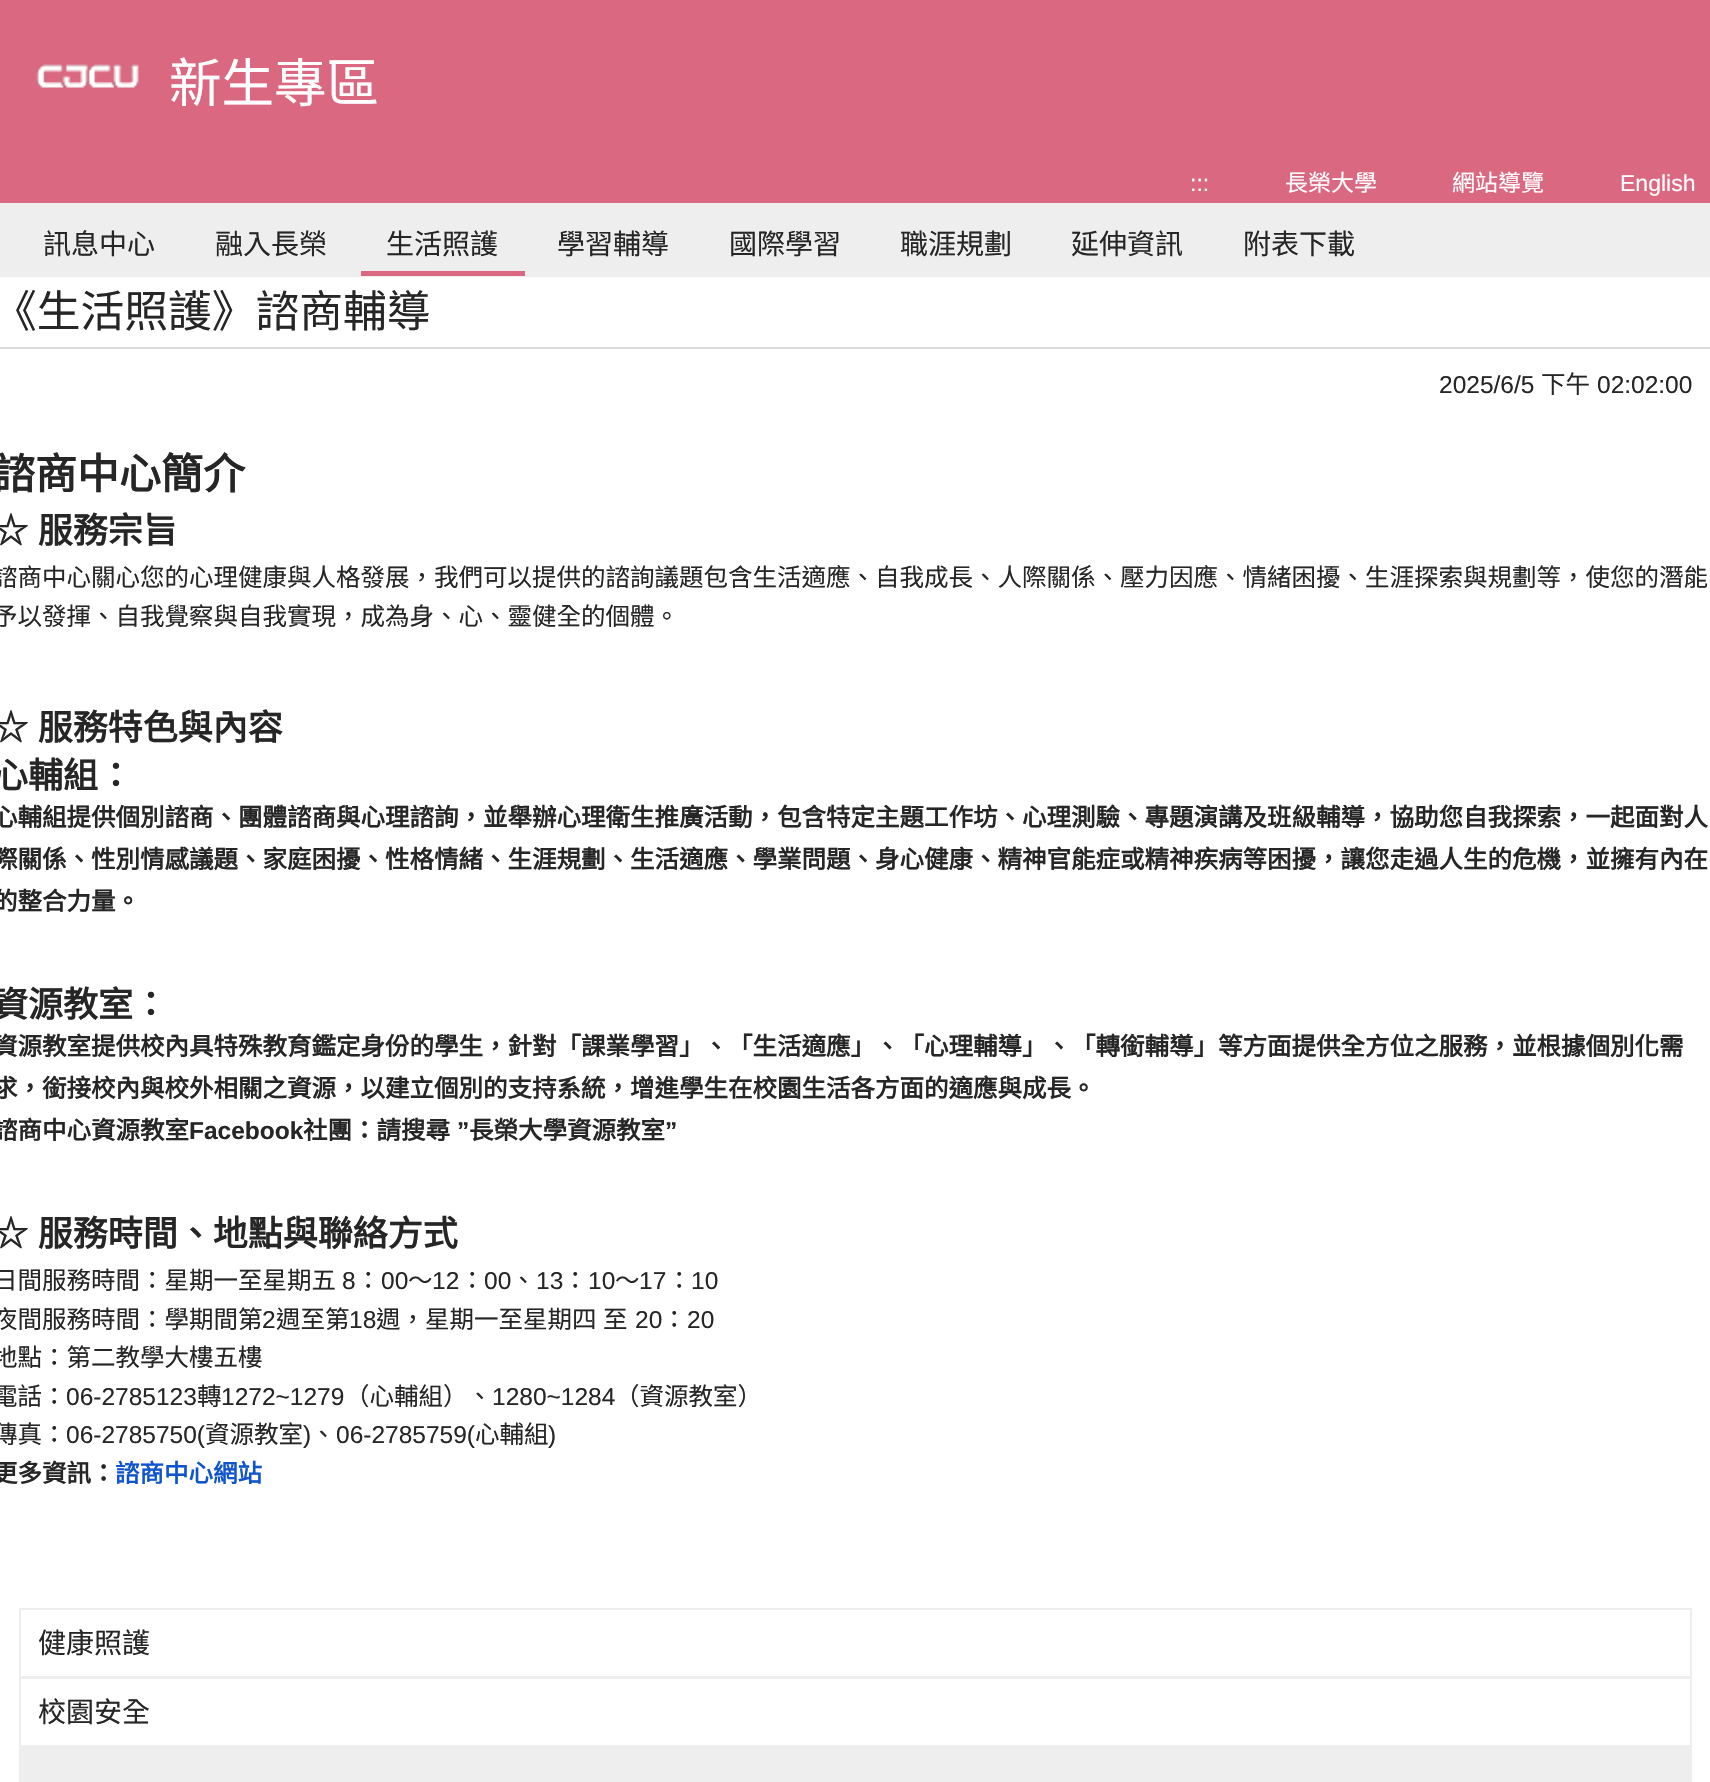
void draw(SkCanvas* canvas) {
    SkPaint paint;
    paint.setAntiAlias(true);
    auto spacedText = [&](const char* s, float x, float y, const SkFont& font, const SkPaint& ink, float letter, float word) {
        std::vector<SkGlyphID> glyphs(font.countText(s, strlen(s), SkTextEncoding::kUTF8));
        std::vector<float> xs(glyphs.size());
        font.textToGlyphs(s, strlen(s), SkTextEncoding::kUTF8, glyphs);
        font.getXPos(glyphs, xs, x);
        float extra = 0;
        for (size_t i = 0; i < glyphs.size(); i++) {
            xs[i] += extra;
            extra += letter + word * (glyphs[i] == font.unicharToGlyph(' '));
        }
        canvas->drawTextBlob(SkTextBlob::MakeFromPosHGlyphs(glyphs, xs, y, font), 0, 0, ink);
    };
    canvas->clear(0xFFFFFFFF);
    paint.setColor(0xFFDA6881);
    canvas->drawRect(SkRect::MakeXYWH(0, 0, 1710, 203), paint);
    canvas->drawImageRect(SkImages::DeferredFromEncodedData(SkData::MakeFromFileName("img1.png")), SkRect::MakeXYWH(36, 64, 103, 24), SkSamplingOptions());
    SkFont font1(fontMgr->matchFamilyStyle("Noto Sans CJK TC", SkFontStyle::Normal()), 52.5f);
    font1.setSubpixel(true);
    paint.setColor(0xFFFFFFFF);
    canvas->drawString("新生專區", 169, 102, font1, paint);
    SkFont font2(fontMgr->matchFamilyStyle("Liberation Sans", SkFontStyle::Normal()), 23);
    font2.setSubpixel(true);
    canvas->drawString(":::", 1190, 191, font2, paint);
    SkFont font3(fontMgr->matchFamilyStyle("Noto Sans CJK TC", SkFontStyle::Normal()), 23);
    font3.setSubpixel(true);
    canvas->drawString("長榮大學", 1285, 191, font3, paint);
    canvas->drawString("網站導覽", 1452, 191, font3, paint);
    canvas->drawString("English", 1620, 191, font2, paint);
    paint.setColor(0xFFEEEEEE);
    canvas->drawRect(SkRect::MakeXYWH(0, 203, 1710, 74), paint);
    SkFont font4(fontMgr->matchFamilyStyle("Noto Sans CJK TC", SkFontStyle::Normal()), 28);
    font4.setSubpixel(true);
    paint.setColor(0xFF262626);
    canvas->drawString("訊息中心", 43, 254, font4, paint);
    canvas->drawString("融入長榮", 215, 254, font4, paint);
    paint.setColor(0xFFDA6881);
    canvas->drawRect(SkRect::MakeXYWH(361, 271, 164, 5), paint);
    paint.setColor(0xFF262626);
    canvas->drawString("生活照護", 386, 254, font4, paint);
    canvas->drawString("學習輔導", 557, 254, font4, paint);
    canvas->drawString("國際學習", 729, 254, font4, paint);
    canvas->drawString("職涯規劃", 900, 254, font4, paint);
    canvas->drawString("延伸資訊", 1071, 254, font4, paint);
    canvas->drawString("附表下載", 1243, 254, font4, paint);
    paint.setColor(0xFFDDDDDD);
    canvas->drawRect(SkRect::MakeXYWH(0, 347, 1710, 2), paint);
    SkFont font5(fontMgr->matchFamilyStyle("Noto Sans CJK TC", SkFontStyle::Normal()), 43.75f);
    font5.setSubpixel(true);
    paint.setColor(0xFF262626);
    canvas->drawString("《生活照護》諮商輔導", -7, 327, font5, paint);
    SkFont font6(fontMgr->matchFamilyStyle("Liberation Sans", SkFontStyle::Normal()), 24.5f);
    font6.setSubpixel(true);
    canvas->drawString("2025/6/5", 1439, 393, font6, paint);
    SkFont font7(fontMgr->matchFamilyStyle("Noto Sans CJK TC", SkFontStyle::Normal()), 24.5f);
    font7.setSubpixel(true);
    canvas->drawString("下午", 1541, 393, font7, paint);
    canvas->drawString("02:02:00", 1597, 393, font6, paint);
    SkFont font8(fontMgr->matchFamilyStyle("Noto Sans CJK TC", SkFontStyle::Bold()), 42);
    font8.setSubpixel(true);
    canvas->drawString("諮商中心簡介", -7, 489, font8, paint);
    SkFont font9(fontMgr->matchFamilyStyle("Noto Sans CJK TC", SkFontStyle::Bold()), 35);
    font9.setSubpixel(true);
    spacedText("☆ 服務宗旨", -7, 543, font9, paint, 0, 2);
    canvas->drawString("諮商中心關心您的心理健康與人格發展，我們可以提供的諮詢議題包含生活適應、自我成長、人際關係、壓力因應、情緒困擾、生涯探索與規劃等，使您的潛能", -7, 586, font7, paint);
    canvas->drawString("予以發揮、自我覺察與自我實現，成為身、心、靈健全的個體。", -7, 625, font7, paint);
    spacedText("☆ 服務特色與內容", -7, 740, font9, paint, 0, 2);
    canvas->drawString("心輔組：", -7, 788, font9, paint);
    SkFont font10(fontMgr->matchFamilyStyle("Noto Sans CJK TC", SkFontStyle::Bold()), 24.5f);
    font10.setSubpixel(true);
    canvas->drawString("心輔組提供個別諮商、團體諮商與心理諮詢，並舉辦心理衛生推廣活動，包含特定主題工作坊、心理測驗、專題演講及班級輔導，協助您自我探索，一起面對人", -7, 826, font10, paint);
    canvas->drawString("際關係、性別情感議題、家庭困擾、性格情緒、生涯規劃、生活適應、學業問題、身心健康、精神官能症或精神疾病等困擾，讓您走過人生的危機，並擁有內在", -7, 868, font10, paint);
    canvas->drawString("的整合力量。", -7, 910, font10, paint);
    canvas->drawString("資源教室：", -7, 1017, font9, paint);
    canvas->drawString("資源教室提供校內具特殊教育鑑定身份的學生，針對「課業學習」、「生活適應」、「心理輔導」、「轉銜輔導」等方面提供全方位之服務，並根據個別化需", -7, 1055, font10, paint);
    canvas->drawString("求，銜接校內與校外相關之資源，以建立個別的支持系統，增進學生在校園生活各方面的適應與成長。", -7, 1097, font10, paint);
    canvas->drawString("諮商中心資源教室", -7, 1139, font10, paint);
    SkFont font11(fontMgr->matchFamilyStyle("Liberation Sans", SkFontStyle::Bold()), 24.5f);
    font11.setSubpixel(true);
    canvas->drawString("Facebook", 189, 1139, font11, paint);
    canvas->drawString("社團：請搜尋", 303, 1139, font10, paint);
    canvas->drawString("”", 457, 1139, font11, paint);
    canvas->drawString("長榮大學資源教室", 469, 1139, font10, paint);
    canvas->drawString("”", 665, 1139, font11, paint);
    spacedText("☆ 服務時間、地點與聯絡方式", -7, 1246, font9, paint, 0, 2);
    canvas->drawString("日間服務時間：星期一至星期五", -7, 1289, font7, paint);
    canvas->drawString("8", 342, 1289, font6, paint);
    canvas->drawString("：", 356, 1289, font7, paint);
    canvas->drawString("00", 381, 1289, font6, paint);
    canvas->drawString("～", 408, 1289, font7, paint);
    canvas->drawString("12", 432, 1289, font6, paint);
    canvas->drawString("：", 460, 1289, font7, paint);
    canvas->drawString("00", 484, 1289, font6, paint);
    canvas->drawString("、", 511, 1289, font7, paint);
    canvas->drawString("13", 536, 1289, font6, paint);
    canvas->drawString("：", 563, 1289, font7, paint);
    canvas->drawString("10", 588, 1289, font6, paint);
    canvas->drawString("～", 615, 1289, font7, paint);
    canvas->drawString("17", 639, 1289, font6, paint);
    canvas->drawString("：", 667, 1289, font7, paint);
    canvas->drawString("10", 691, 1289, font6, paint);
    canvas->drawString("夜間服務時間：學期間第", -7, 1328, font7, paint);
    canvas->drawString("2", 262, 1328, font6, paint);
    canvas->drawString("週至第", 276, 1328, font7, paint);
    canvas->drawString("18", 349, 1328, font6, paint);
    spacedText("週，星期一至星期四 至", 376, 1328, font7, paint, 0, 1);
    canvas->drawString("20", 635, 1328, font6, paint);
    canvas->drawString("：", 662, 1328, font7, paint);
    canvas->drawString("20", 687, 1328, font6, paint);
    canvas->drawString("地點：第二教學大樓五樓", -7, 1366, font7, paint);
    canvas->drawString("電話：", -7, 1405, font7, paint);
    canvas->drawString("06-2785123", 66, 1405, font6, paint);
    canvas->drawString("轉", 197, 1405, font7, paint);
    canvas->drawString("1272~1279", 221, 1405, font6, paint);
    canvas->drawString("（心輔組）、", 345, 1405, font7, paint);
    canvas->drawString("1280~1284", 492, 1405, font6, paint);
    canvas->drawString("（資源教室）", 615, 1405, font7, paint);
    canvas->drawString("傳真：", -7, 1443, font7, paint);
    canvas->drawString("06-2785750(", 66, 1443, font6, paint);
    canvas->drawString("資源教室", 205, 1443, font7, paint);
    canvas->drawString(")", 303, 1443, font6, paint);
    canvas->drawString("、", 311, 1443, font7, paint);
    canvas->drawString("06-2785759(", 336, 1443, font6, paint);
    canvas->drawString("心輔組", 475, 1443, font7, paint);
    canvas->drawString(")", 548, 1443, font6, paint);
    canvas->drawString("更多資訊：", -7, 1482, font10, paint);
    paint.setColor(0xFF1155CC);
    canvas->drawString("諮商中心網站", 115, 1482, font10, paint);
    paint.setStyle(SkPaint::kStroke_Style);
    paint.setStrokeWidth(2);
    paint.setColor(0xFFEEEEEE);
    canvas->drawRect(SkRect::MakeXYWH(20, 1609, 1671, 68), paint);
    paint.setStyle(SkPaint::kFill_Style);
    paint.setColor(0xFF262626);
    canvas->drawString("健康照護", 38, 1653, font4, paint);
    paint.setStyle(SkPaint::kStroke_Style);
    paint.setColor(0xFFEEEEEE);
    canvas->drawRect(SkRect::MakeXYWH(20, 1678, 1671, 68), paint);
    paint.setStyle(SkPaint::kFill_Style);
    paint.setColor(0xFF262626);
    canvas->drawString("校園安全", 38, 1722, font4, paint);
    paint.setColor(0xFFEEEEEE);
    canvas->drawRect(SkRect::MakeXYWH(19, 1747, 1673, 35), paint);
}
